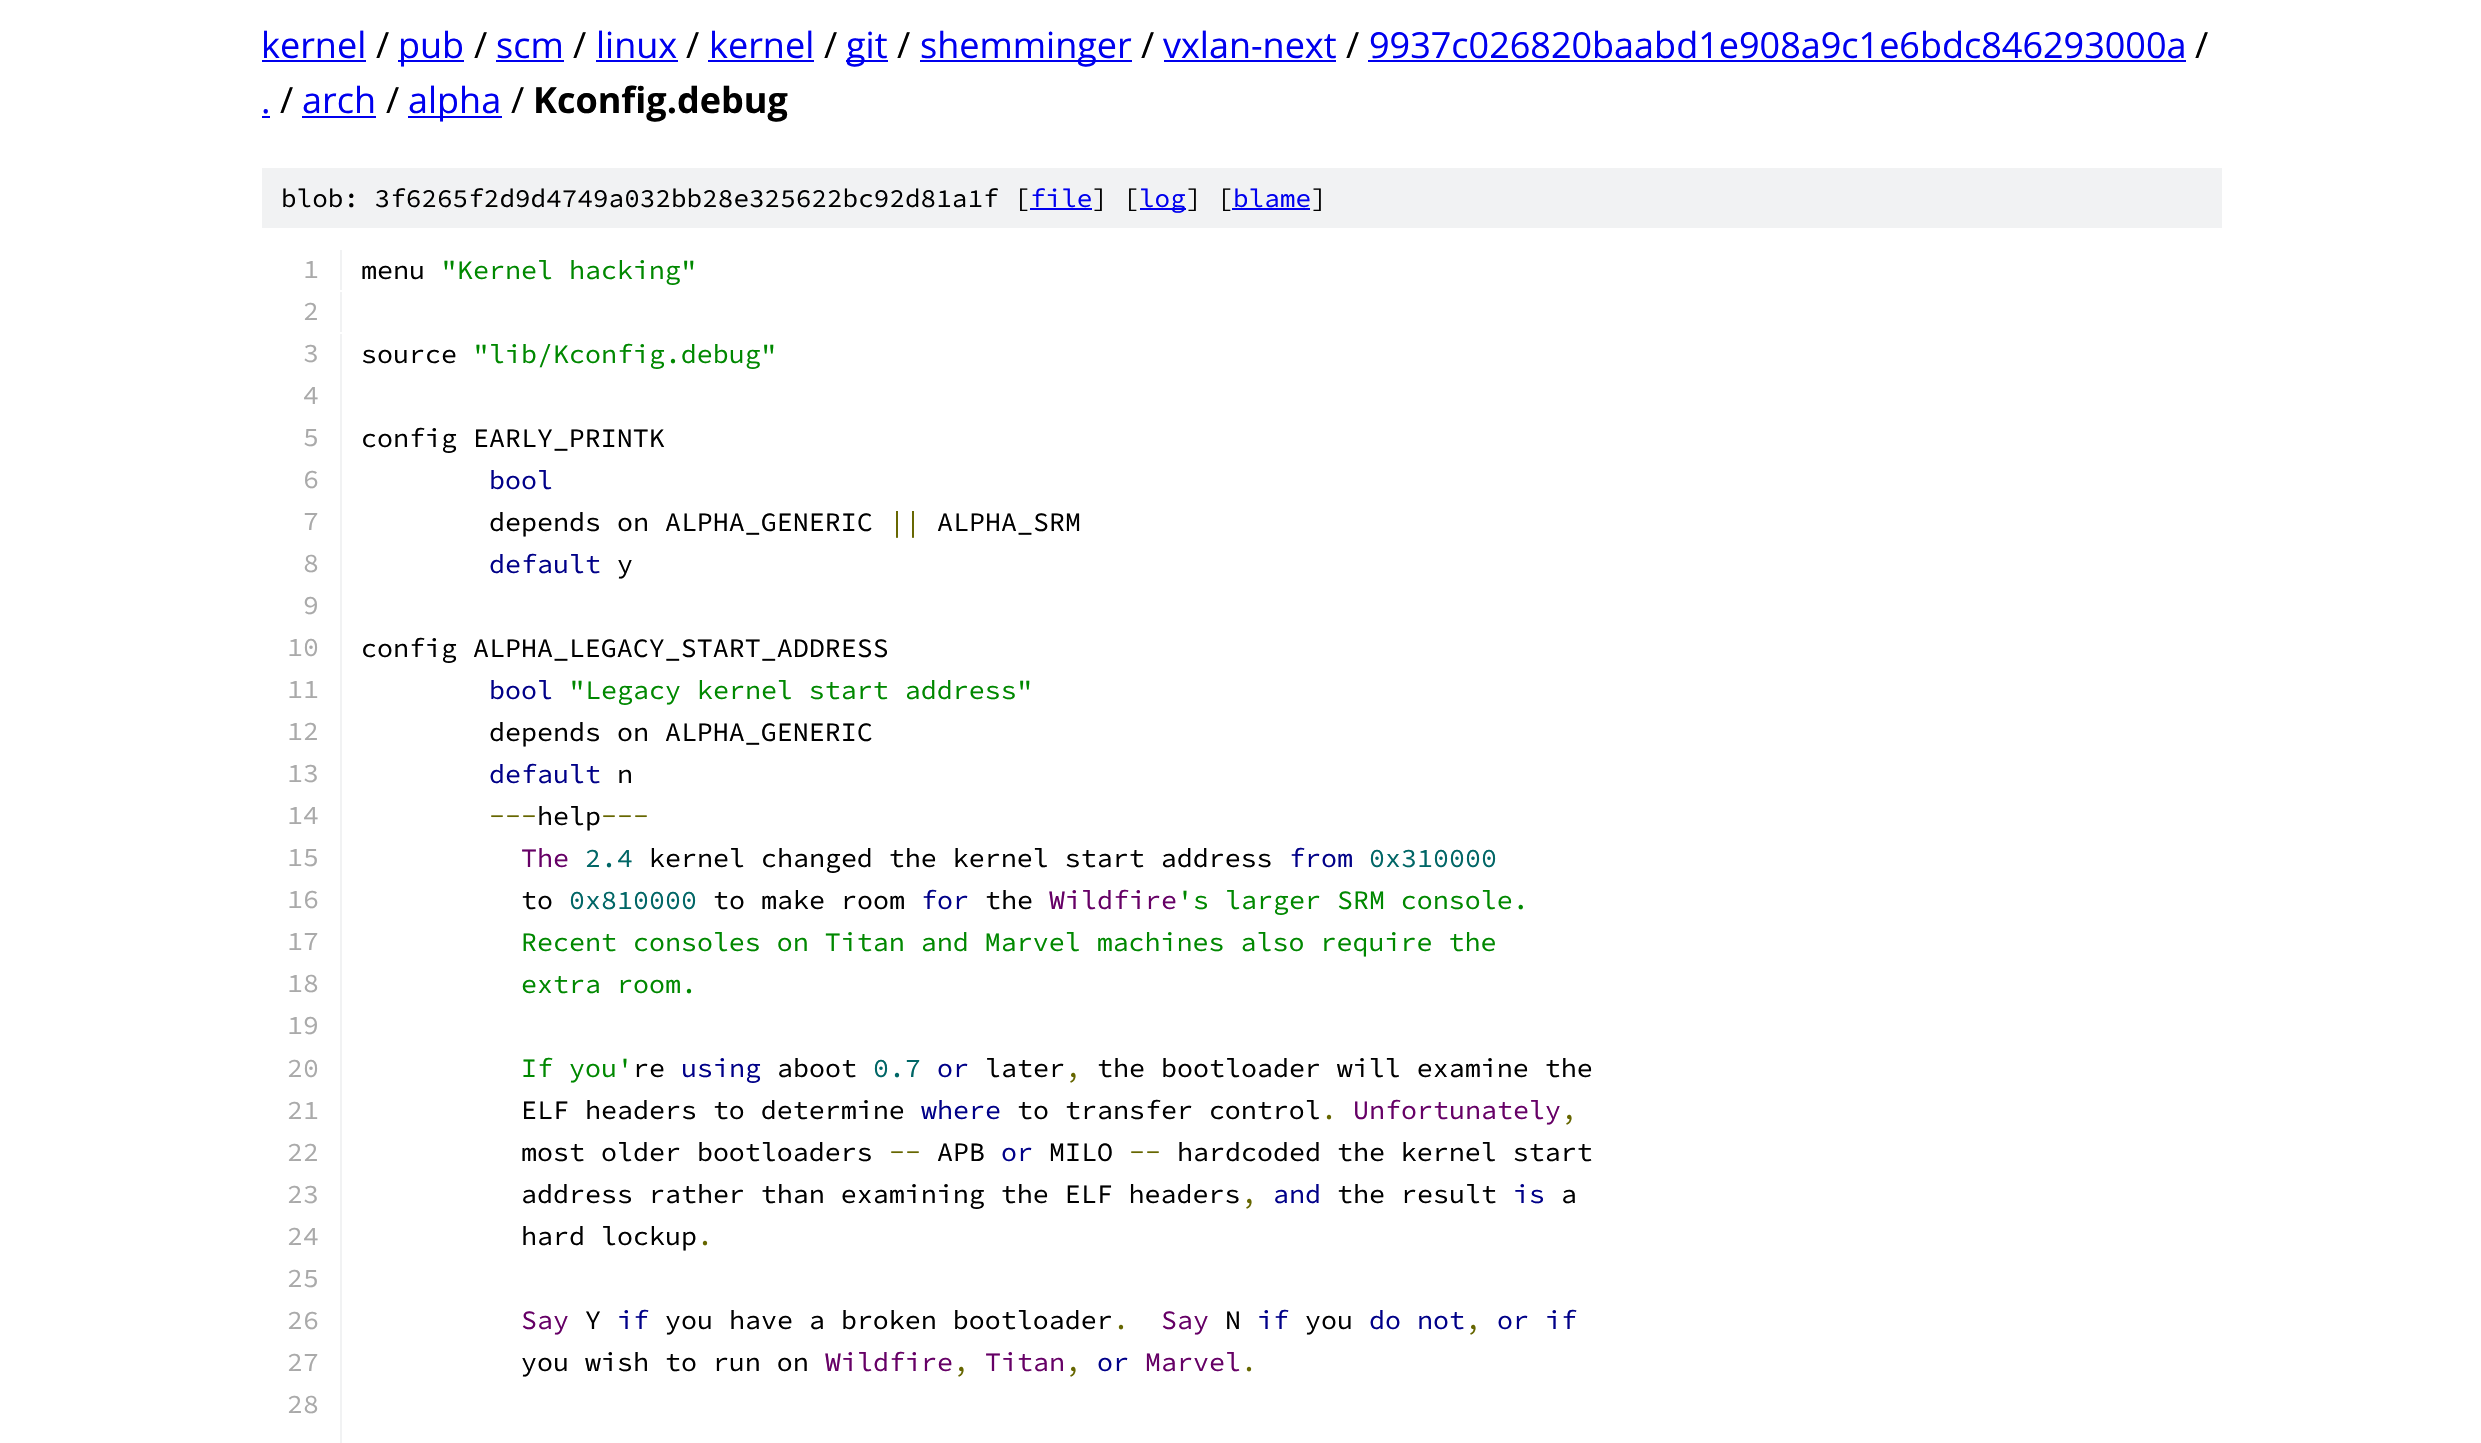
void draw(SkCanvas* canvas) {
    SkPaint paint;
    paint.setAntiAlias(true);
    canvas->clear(0xFFFFFFFF);
    SkFont font1(fontMgr->matchFamilyStyle("Open Sans", SkFontStyle::Normal()), 36);
    font1.setSubpixel(true);
    paint.setColor(0xFF0000EE);
    canvas->drawString("kernel", 261, 58, font1, paint);
    canvas->drawRect(SkRect::MakeXYWH(262, 60, 104, 2), paint);
    paint.setColor(0xFF000000);
    canvas->drawString("/", 376, 58, font1, paint);
    paint.setColor(0xFF0000EE);
    canvas->drawRect(SkRect::MakeXYWH(398, 60, 66, 2), paint);
    canvas->drawString("pub", 398, 58, font1, paint);
    paint.setColor(0xFF000000);
    canvas->drawString("/", 474, 58, font1, paint);
    paint.setColor(0xFF0000EE);
    canvas->drawString("scm", 496, 58, font1, paint);
    canvas->drawRect(SkRect::MakeXYWH(496, 60, 68, 2), paint);
    paint.setColor(0xFF000000);
    canvas->drawString("/", 573, 58, font1, paint);
    paint.setColor(0xFF0000EE);
    canvas->drawString("linux", 596, 58, font1, paint);
    canvas->drawRect(SkRect::MakeXYWH(596, 60, 82, 2), paint);
    paint.setColor(0xFF000000);
    canvas->drawString("/", 686, 58, font1, paint);
    paint.setColor(0xFF0000EE);
    canvas->drawString("kernel", 709, 58, font1, paint);
    canvas->drawRect(SkRect::MakeXYWH(708, 60, 106, 2), paint);
    paint.setColor(0xFF000000);
    canvas->drawString("/", 824, 58, font1, paint);
    paint.setColor(0xFF0000EE);
    canvas->drawRect(SkRect::MakeXYWH(846, 60, 42, 2), paint);
    canvas->drawString("git", 846, 58, font1, paint);
    paint.setColor(0xFF000000);
    canvas->drawString("/", 897, 58, font1, paint);
    paint.setColor(0xFF0000EE);
    canvas->drawRect(SkRect::MakeXYWH(920, 60, 212, 2), paint);
    canvas->drawString("shemminger", 920, 58, font1, paint);
    paint.setColor(0xFF000000);
    canvas->drawString("/", 1141, 58, font1, paint);
    paint.setColor(0xFF0000EE);
    canvas->drawString("vxlan-next", 1163, 58, font1, paint);
    canvas->drawRect(SkRect::MakeXYWH(1164, 60, 172, 2), paint);
    paint.setColor(0xFF000000);
    canvas->drawString("/", 1346, 58, font1, paint);
    paint.setColor(0xFF0000EE);
    canvas->drawString("9937c026820baabd1e908a9c1e6bdc846293000a", 1369, 58, font1, paint);
    canvas->drawRect(SkRect::MakeXYWH(1368, 60, 818, 2), paint);
    paint.setColor(0xFF000000);
    canvas->drawString("/", 2195, 58, font1, paint);
    paint.setColor(0xFF0000EE);
    canvas->drawString(".", 261, 113, font1, paint);
    canvas->drawRect(SkRect::MakeXYWH(262, 116, 8, 2), paint);
    paint.setColor(0xFF000000);
    canvas->drawString("/", 280, 113, font1, paint);
    paint.setColor(0xFF0000EE);
    canvas->drawString("arch", 302, 113, font1, paint);
    canvas->drawRect(SkRect::MakeXYWH(302, 116, 74, 2), paint);
    paint.setColor(0xFF000000);
    canvas->drawString("/", 386, 113, font1, paint);
    paint.setColor(0xFF0000EE);
    canvas->drawRect(SkRect::MakeXYWH(408, 116, 94, 2), paint);
    canvas->drawString("alpha", 408, 113, font1, paint);
    paint.setColor(0xFF000000);
    canvas->drawString("/", 511, 113, font1, paint);
    SkFont font2(fontMgr->matchFamilyStyle("Open Sans", SkFontStyle::Bold()), 36);
    font2.setSubpixel(true);
    canvas->drawString("Kconfig.debug", 533, 113, font2, paint);
    paint.setColor(0xFFF1F2F3);
    canvas->drawRect(SkRect::MakeXYWH(262, 168, 1960, 60), paint);
    SkFont font3(fontMgr->matchFamilyStyle("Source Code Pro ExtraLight", SkFontStyle(200, SkFontStyle::kNormal_Width, SkFontStyle::kUpright_Slant)), 26);
    font3.setSubpixel(true);
    paint.setColor(0xFF000000);
    canvas->drawString("blob: 3f6265f2d9d4749a032bb28e325622bc92d81a1f [", 281, 207, font3, paint);
    paint.setColor(0xFF0000EE);
    canvas->drawString("file", 1030, 207, font3, paint);
    canvas->drawRect(SkRect::MakeXYWH(1030, 208, 62, 2), paint);
    paint.setColor(0xFF000000);
    canvas->drawString("] [", 1092, 207, font3, paint);
    paint.setColor(0xFF0000EE);
    canvas->drawRect(SkRect::MakeXYWH(1140, 208, 46, 2), paint);
    canvas->drawString("log", 1139, 207, font3, paint);
    paint.setColor(0xFF000000);
    canvas->drawString("] [", 1186, 207, font3, paint);
    paint.setColor(0xFF0000EE);
    canvas->drawString("blame", 1233, 207, font3, paint);
    canvas->drawRect(SkRect::MakeXYWH(1232, 208, 78, 2), paint);
    paint.setColor(0xFF000000);
    canvas->drawString("]", 1311, 207, font3, paint);
    paint.setColor(0xFFF1F2F3);
    canvas->drawRect(SkRect::MakeXYWH(340, 250, 2, 40), paint);
    SkFont font4(fontMgr->matchFamilyStyle("Source Code Pro ExtraLight", SkFontStyle(200, SkFontStyle::kNormal_Width, SkFontStyle::kUpright_Slant)), 26.65f);
    font4.setSubpixel(true);
    paint.setColor(0xFFAAAAAA);
    canvas->drawString("1", 303, 278, font4, paint);
    paint.setColor(0xFF000000);
    canvas->drawString("menu", 361, 279, font4, paint);
    paint.setColor(0xFF008800);
    canvas->drawString("\"Kernel hacking\"", 441, 279, font4, paint);
    paint.setColor(0xFFF1F2F3);
    canvas->drawRect(SkRect::MakeXYWH(340, 292, 2, 40), paint);
    paint.setColor(0xFFAAAAAA);
    canvas->drawString("2", 303, 320, font4, paint);
    paint.setColor(0xFFF1F2F3);
    canvas->drawRect(SkRect::MakeXYWH(340, 334, 2, 1109), paint);
    paint.setColor(0xFFAAAAAA);
    canvas->drawString("3", 303, 362, font4, paint);
    paint.setColor(0xFF000000);
    canvas->drawString("source", 361, 363, font4, paint);
    paint.setColor(0xFF008800);
    canvas->drawString("\"lib/Kconfig.debug\"", 473, 363, font4, paint);
    paint.setColor(0xFFAAAAAA);
    canvas->drawString("4", 303, 404, font4, paint);
    canvas->drawString("5", 303, 446, font4, paint);
    paint.setColor(0xFF000000);
    canvas->drawString("config EARLY_PRINTK", 361, 447, font4, paint);
    paint.setColor(0xFFAAAAAA);
    canvas->drawString("6", 303, 488, font4, paint);
    paint.setColor(0xFF000088);
    canvas->drawString("bool", 489, 489, font4, paint);
    paint.setColor(0xFFAAAAAA);
    canvas->drawString("7", 303, 530, font4, paint);
    paint.setColor(0xFF000000);
    canvas->drawString("depends on ALPHA_GENERIC", 489, 531, font4, paint);
    paint.setColor(0xFF666600);
    canvas->drawString("||", 889, 531, font4, paint);
    paint.setColor(0xFF000000);
    canvas->drawString("ALPHA_SRM", 937, 531, font4, paint);
    paint.setColor(0xFFAAAAAA);
    canvas->drawString("8", 303, 572, font4, paint);
    paint.setColor(0xFF000088);
    canvas->drawString("default", 489, 573, font4, paint);
    paint.setColor(0xFF000000);
    canvas->drawString("y", 617, 573, font4, paint);
    paint.setColor(0xFFAAAAAA);
    canvas->drawString("9", 303, 614, font4, paint);
    canvas->drawString("10", 287, 656, font4, paint);
    paint.setColor(0xFF000000);
    canvas->drawString("config ALPHA_LEGACY_START_ADDRESS", 361, 657, font4, paint);
    paint.setColor(0xFFAAAAAA);
    canvas->drawString("11", 287, 698, font4, paint);
    paint.setColor(0xFF000088);
    canvas->drawString("bool", 489, 699, font4, paint);
    paint.setColor(0xFF008800);
    canvas->drawString("\"Legacy kernel start address\"", 569, 699, font4, paint);
    paint.setColor(0xFFAAAAAA);
    canvas->drawString("12", 287, 740, font4, paint);
    paint.setColor(0xFF000000);
    canvas->drawString("depends on ALPHA_GENERIC", 489, 741, font4, paint);
    paint.setColor(0xFFAAAAAA);
    canvas->drawString("13", 287, 782, font4, paint);
    paint.setColor(0xFF000088);
    canvas->drawString("default", 489, 783, font4, paint);
    paint.setColor(0xFF000000);
    canvas->drawString("n", 617, 783, font4, paint);
    paint.setColor(0xFFAAAAAA);
    canvas->drawString("14", 287, 824, font4, paint);
    paint.setColor(0xFF666600);
    canvas->drawString("---", 489, 825, font4, paint);
    paint.setColor(0xFF000000);
    canvas->drawString("help", 537, 825, font4, paint);
    paint.setColor(0xFF666600);
    canvas->drawString("---", 601, 825, font4, paint);
    paint.setColor(0xFFAAAAAA);
    canvas->drawString("15", 287, 866, font4, paint);
    paint.setColor(0xFF660066);
    canvas->drawString("The", 521, 867, font4, paint);
    paint.setColor(0xFF006666);
    canvas->drawString("2.4", 585, 867, font4, paint);
    paint.setColor(0xFF000000);
    canvas->drawString("kernel changed the kernel start address", 649, 867, font4, paint);
    paint.setColor(0xFF000088);
    canvas->drawString("from", 1289, 867, font4, paint);
    paint.setColor(0xFF006666);
    canvas->drawString("0x310000", 1369, 867, font4, paint);
    paint.setColor(0xFFAAAAAA);
    canvas->drawString("16", 287, 908, font4, paint);
    paint.setColor(0xFF000000);
    canvas->drawString("to", 521, 909, font4, paint);
    paint.setColor(0xFF006666);
    canvas->drawString("0x810000", 569, 909, font4, paint);
    paint.setColor(0xFF000000);
    canvas->drawString("to make room", 713, 909, font4, paint);
    paint.setColor(0xFF000088);
    canvas->drawString("for", 921, 909, font4, paint);
    paint.setColor(0xFF000000);
    canvas->drawString("the", 985, 909, font4, paint);
    paint.setColor(0xFF660066);
    canvas->drawString("Wildfire", 1049, 909, font4, paint);
    paint.setColor(0xFF008800);
    canvas->drawString("'s larger SRM console.", 1177, 909, font4, paint);
    paint.setColor(0xFFAAAAAA);
    canvas->drawString("17", 287, 950, font4, paint);
    paint.setColor(0xFF008800);
    canvas->drawString("Recent consoles on Titan and Marvel machines also require the", 521, 951, font4, paint);
    paint.setColor(0xFFAAAAAA);
    canvas->drawString("18", 287, 992, font4, paint);
    paint.setColor(0xFF008800);
    canvas->drawString("extra room.", 521, 993, font4, paint);
    paint.setColor(0xFFAAAAAA);
    canvas->drawString("19", 287, 1034, font4, paint);
    canvas->drawString("20", 287, 1077, font4, paint);
    paint.setColor(0xFF008800);
    canvas->drawString("If you'", 521, 1077, font4, paint);
    paint.setColor(0xFF000000);
    canvas->drawString("re", 633, 1077, font4, paint);
    paint.setColor(0xFF000088);
    canvas->drawString("using", 681, 1077, font4, paint);
    paint.setColor(0xFF000000);
    canvas->drawString("aboot", 777, 1077, font4, paint);
    paint.setColor(0xFF006666);
    canvas->drawString("0.7", 873, 1077, font4, paint);
    paint.setColor(0xFF000088);
    canvas->drawString("or", 937, 1077, font4, paint);
    paint.setColor(0xFF000000);
    canvas->drawString("later", 985, 1077, font4, paint);
    paint.setColor(0xFF666600);
    canvas->drawString(",", 1065, 1077, font4, paint);
    paint.setColor(0xFF000000);
    canvas->drawString("the bootloader will examine the", 1097, 1077, font4, paint);
    paint.setColor(0xFFAAAAAA);
    canvas->drawString("21", 287, 1119, font4, paint);
    paint.setColor(0xFF000000);
    canvas->drawString("ELF headers to determine", 521, 1119, font4, paint);
    paint.setColor(0xFF000088);
    canvas->drawString("where", 921, 1119, font4, paint);
    paint.setColor(0xFF000000);
    canvas->drawString("to transfer control", 1017, 1119, font4, paint);
    paint.setColor(0xFF666600);
    canvas->drawString(".", 1321, 1119, font4, paint);
    paint.setColor(0xFF660066);
    canvas->drawString("Unfortunately", 1353, 1119, font4, paint);
    paint.setColor(0xFF666600);
    canvas->drawString(",", 1561, 1119, font4, paint);
    paint.setColor(0xFFAAAAAA);
    canvas->drawString("22", 287, 1161, font4, paint);
    paint.setColor(0xFF000000);
    canvas->drawString("most older bootloaders", 521, 1161, font4, paint);
    paint.setColor(0xFF666600);
    canvas->drawString("--", 889, 1161, font4, paint);
    paint.setColor(0xFF000000);
    canvas->drawString("APB", 937, 1161, font4, paint);
    paint.setColor(0xFF000088);
    canvas->drawString("or", 1001, 1161, font4, paint);
    paint.setColor(0xFF000000);
    canvas->drawString("MILO", 1049, 1161, font4, paint);
    paint.setColor(0xFF666600);
    canvas->drawString("--", 1129, 1161, font4, paint);
    paint.setColor(0xFF000000);
    canvas->drawString("hardcoded the kernel start", 1177, 1161, font4, paint);
    paint.setColor(0xFFAAAAAA);
    canvas->drawString("23", 287, 1203, font4, paint);
    paint.setColor(0xFF000000);
    canvas->drawString("address rather than examining the ELF headers", 521, 1203, font4, paint);
    paint.setColor(0xFF666600);
    canvas->drawString(",", 1241, 1203, font4, paint);
    paint.setColor(0xFF000088);
    canvas->drawString("and", 1273, 1203, font4, paint);
    paint.setColor(0xFF000000);
    canvas->drawString("the result", 1337, 1203, font4, paint);
    paint.setColor(0xFF000088);
    canvas->drawString("is", 1513, 1203, font4, paint);
    paint.setColor(0xFF000000);
    canvas->drawString("a", 1561, 1203, font4, paint);
    paint.setColor(0xFFAAAAAA);
    canvas->drawString("24", 287, 1245, font4, paint);
    paint.setColor(0xFF000000);
    canvas->drawString("hard lockup", 521, 1245, font4, paint);
    paint.setColor(0xFF666600);
    canvas->drawString(".", 697, 1245, font4, paint);
    paint.setColor(0xFFAAAAAA);
    canvas->drawString("25", 287, 1287, font4, paint);
    canvas->drawString("26", 287, 1329, font4, paint);
    paint.setColor(0xFF660066);
    canvas->drawString("Say", 521, 1329, font4, paint);
    paint.setColor(0xFF000000);
    canvas->drawString("Y", 585, 1329, font4, paint);
    paint.setColor(0xFF000088);
    canvas->drawString("if", 617, 1329, font4, paint);
    paint.setColor(0xFF000000);
    canvas->drawString("you have a broken bootloader", 665, 1329, font4, paint);
    paint.setColor(0xFF666600);
    canvas->drawString(".", 1113, 1329, font4, paint);
    paint.setColor(0xFF660066);
    canvas->drawString("Say", 1161, 1329, font4, paint);
    paint.setColor(0xFF000000);
    canvas->drawString("N", 1225, 1329, font4, paint);
    paint.setColor(0xFF000088);
    canvas->drawString("if", 1257, 1329, font4, paint);
    paint.setColor(0xFF000000);
    canvas->drawString("you", 1305, 1329, font4, paint);
    paint.setColor(0xFF000088);
    canvas->drawString("do not", 1369, 1329, font4, paint);
    paint.setColor(0xFF666600);
    canvas->drawString(",", 1465, 1329, font4, paint);
    paint.setColor(0xFF000088);
    canvas->drawString("or if", 1497, 1329, font4, paint);
    paint.setColor(0xFFAAAAAA);
    canvas->drawString("27", 287, 1371, font4, paint);
    paint.setColor(0xFF000000);
    canvas->drawString("you wish to run on", 521, 1371, font4, paint);
    paint.setColor(0xFF660066);
    canvas->drawString("Wildfire", 825, 1371, font4, paint);
    paint.setColor(0xFF666600);
    canvas->drawString(",", 953, 1371, font4, paint);
    paint.setColor(0xFF660066);
    canvas->drawString("Titan", 985, 1371, font4, paint);
    paint.setColor(0xFF666600);
    canvas->drawString(",", 1065, 1371, font4, paint);
    paint.setColor(0xFF000088);
    canvas->drawString("or", 1097, 1371, font4, paint);
    paint.setColor(0xFF660066);
    canvas->drawString("Marvel", 1145, 1371, font4, paint);
    paint.setColor(0xFF666600);
    canvas->drawString(".", 1241, 1371, font4, paint);
    paint.setColor(0xFFAAAAAA);
    canvas->drawString("28", 287, 1413, font4, paint);
}
